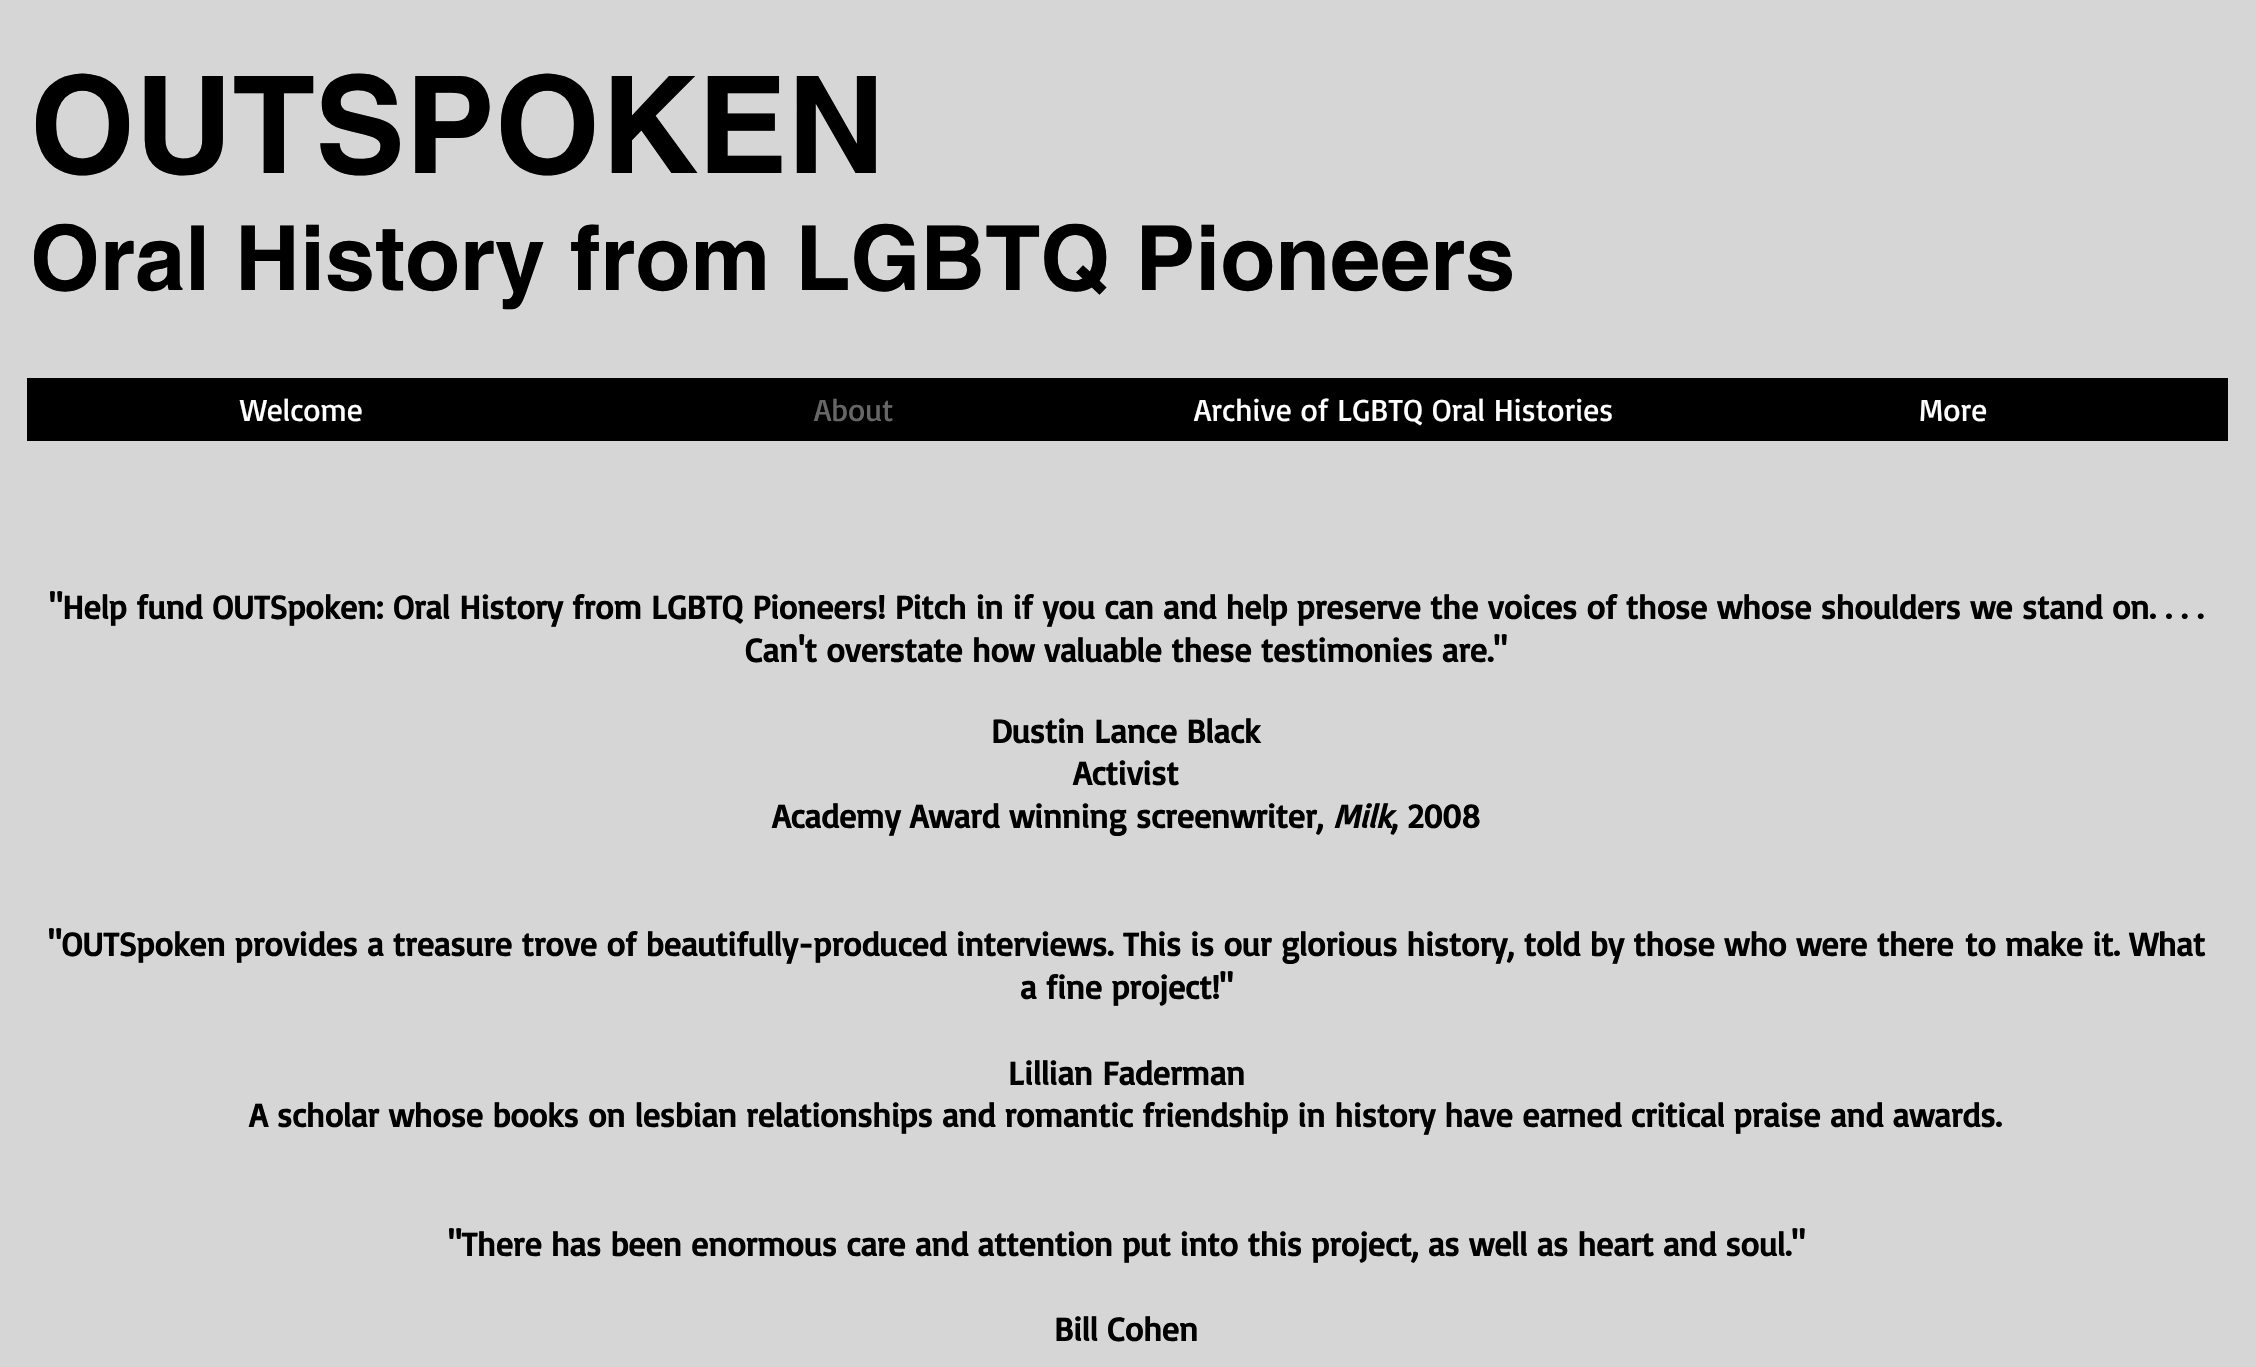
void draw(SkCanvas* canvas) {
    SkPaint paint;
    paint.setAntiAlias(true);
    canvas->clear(0xFFD6D6D6);
    SkFont font1(fontMgr->matchFamilyStyle("helvetica", SkFontStyle::Bold()), 135);
    font1.setSubpixel(true);
    paint.setColor(0xFF000000);
    canvas->drawString("OUTSPOKEN", 30, 173, font1, paint);
    SkFont font2(fontMgr->matchFamilyStyle("helvetica", SkFontStyle::Bold()), 90);
    font2.setSubpixel(true);
    canvas->drawString("Oral History from LGBTQ Pioneers", 30, 290, font2, paint);
    canvas->drawRect(SkRect::MakeXYWH(27, 378, 2201, 63), paint);
    SkFont font3(fontMgr->matchFamilyStyle("Basic", SkFontStyle::Normal()), 31.5f);
    font3.setSubpixel(true);
    paint.setColor(0xFFFFFFFF);
    canvas->drawString("Welcome", 240, 421, font3, paint);
    paint.setColor(0xFF666666);
    canvas->drawString("About", 814, 421, font3, paint);
    paint.setColor(0xFFFFFFFF);
    canvas->drawString("Archive of LGBTQ Oral Histories", 1194, 421, font3, paint);
    canvas->drawString("More", 1919, 421, font3, paint);
    SkFont font4(fontMgr->matchFamilyStyle("Basic", SkFontStyle::Bold()), 33.75f);
    font4.setSubpixel(true);
    paint.setColor(0xFF000000);
    canvas->drawString("\"Help fund OUTSpoken: Oral History from LGBTQ Pioneers! Pitch in if you can and help preserve the voices of those whose shoulders we stand on. . . .", 49, 619, font4, paint);
    canvas->drawString("Can't overstate how valuable these testimonies are.\"", 745, 662, font4, paint);
    canvas->drawString("Dustin Lance Black", 991, 743, font4, paint);
    canvas->drawString("Activist", 1073, 785, font4, paint);
    canvas->drawString("Academy Award winning screenwriter,", 772, 828, font4, paint);
    SkFont font5(fontMgr->matchFamilyStyle("Basic", SkFontStyle::BoldItalic()), 33.75f);
    font5.setSubpixel(true);
    canvas->drawString("Milk", 1333, 828, font5, paint);
    canvas->drawString(", 2008", 1391, 828, font4, paint);
    canvas->drawString("\"OUTSpoken provides a treasure trove of beautifully-produced interviews. This is our glorious history, told by those who were there", 48, 956, font4, paint);
    canvas->drawString("to make it. What", 1965, 956, font4, paint);
    canvas->drawString("a fine project!\"", 1020, 999, font4, paint);
    canvas->drawString("Lillian Faderman", 1008, 1085, font4, paint);
    canvas->drawString("A scholar whose books on lesbian relationships and romantic friendship in history have earned critical praise and awards.", 249, 1127, font4, paint);
    canvas->drawString("\"There has been enormous care and attention put into this project, as well as heart and soul.\"", 448, 1256, font4, paint);
    canvas->drawString("Bill Cohen", 1054, 1341, font4, paint);
}
